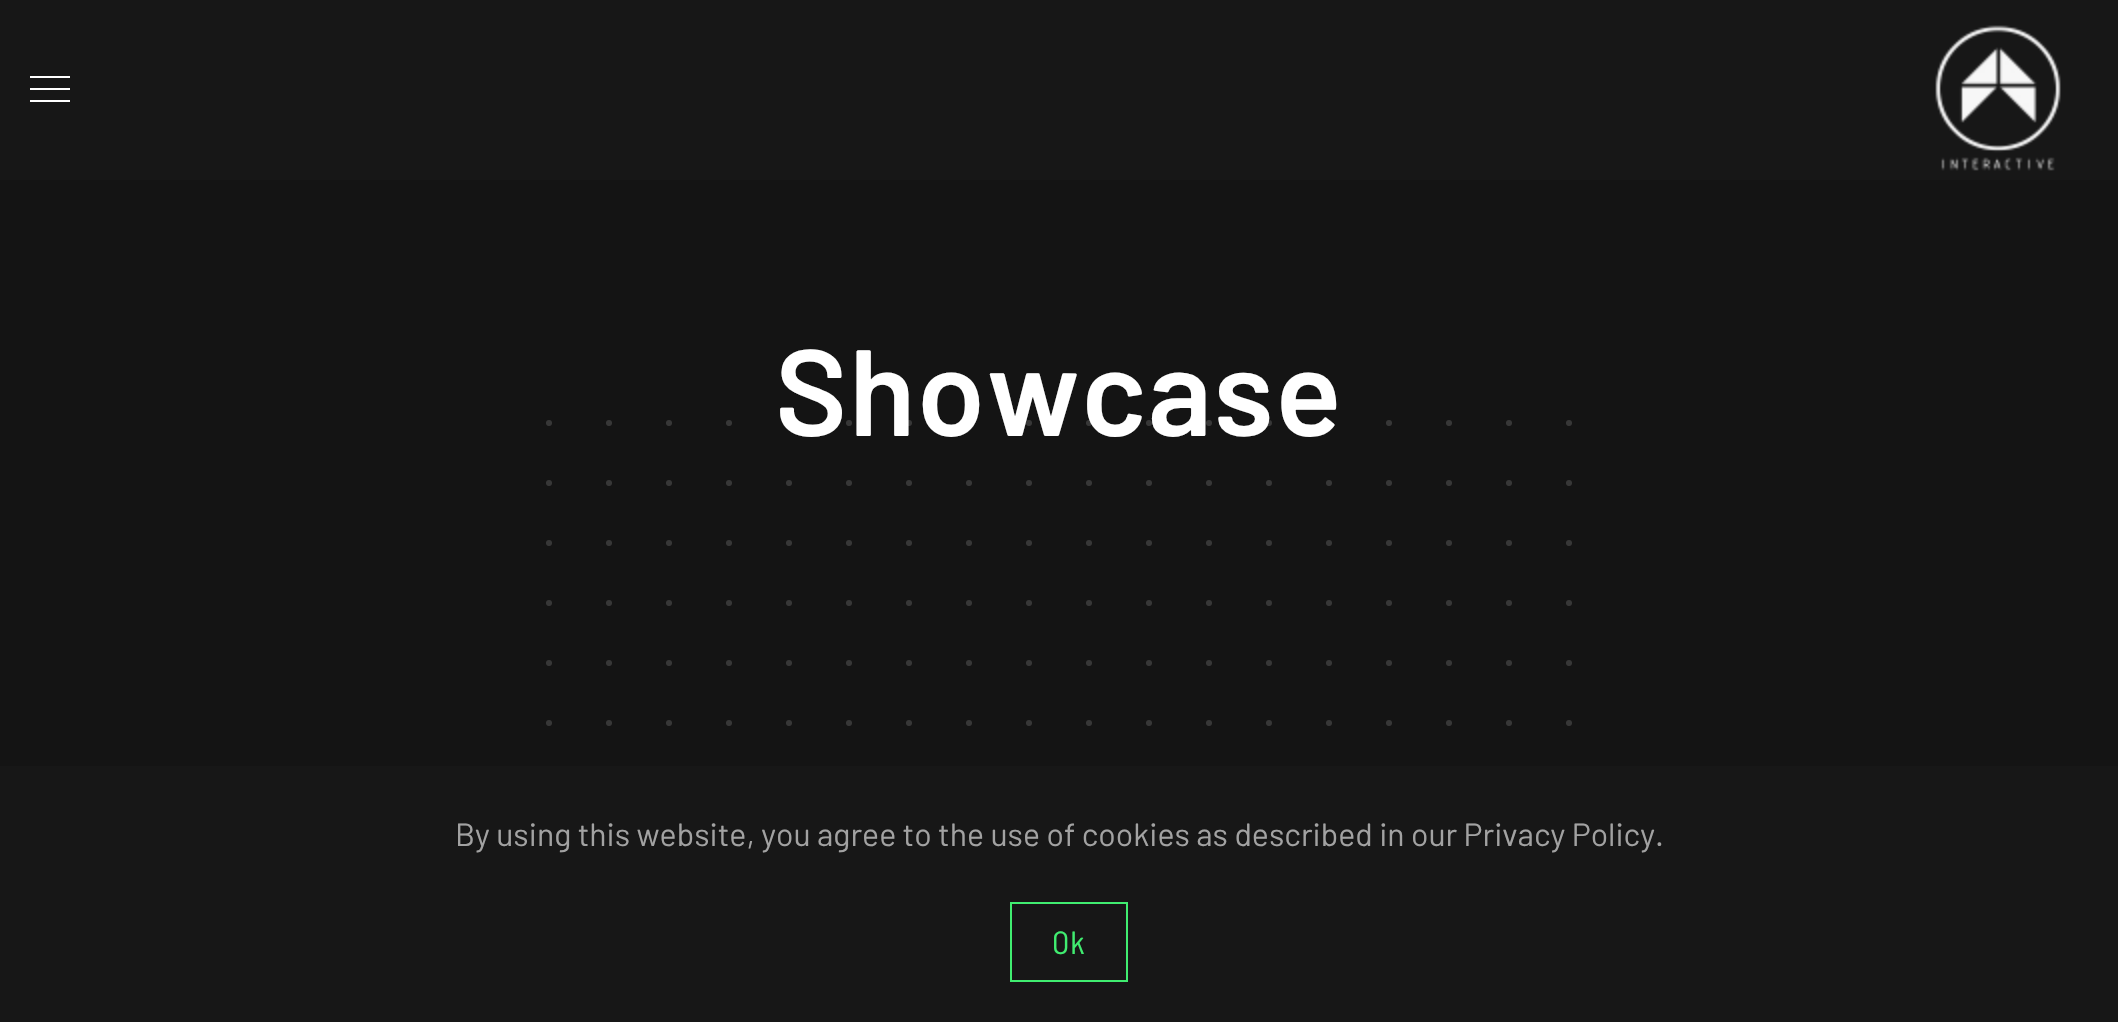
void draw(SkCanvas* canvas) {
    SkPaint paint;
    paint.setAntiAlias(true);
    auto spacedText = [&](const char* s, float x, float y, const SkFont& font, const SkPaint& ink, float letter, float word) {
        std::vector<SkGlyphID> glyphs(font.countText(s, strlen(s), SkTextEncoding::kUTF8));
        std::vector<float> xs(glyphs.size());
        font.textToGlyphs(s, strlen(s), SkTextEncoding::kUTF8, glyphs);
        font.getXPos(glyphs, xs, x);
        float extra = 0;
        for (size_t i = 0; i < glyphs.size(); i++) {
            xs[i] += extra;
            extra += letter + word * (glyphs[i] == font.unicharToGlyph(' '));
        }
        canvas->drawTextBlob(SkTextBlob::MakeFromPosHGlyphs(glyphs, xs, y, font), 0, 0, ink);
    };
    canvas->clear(0xFF171717);
    paint.setColor(0xFFFFFFFF);
    canvas->drawRect(SkRect::MakeXYWH(30, 76, 40, 2), paint);
    canvas->drawRect(SkRect::MakeXYWH(30, 88, 40, 2), paint);
    canvas->drawRect(SkRect::MakeXYWH(30, 100, 40, 2), paint);
    canvas->drawImageRect(SkImages::DeferredFromEncodedData(SkData::MakeFromFileName("img1.png")), SkRect::MakeXYWH(1935, 25, 126, 146), SkSamplingOptions());
    paint.setColor(0xFF141414);
    canvas->drawRect(SkRect::MakeXYWH(0, 180, 2118, 586), paint);
    canvas->drawImageRect(SkImages::DeferredFromEncodedData(SkData::MakeFromFileName("img2.png")), SkRect::MakeXYWH(546, 420, 1026, 306), SkSamplingOptions());
    SkFont font1(fontMgr->matchFamilyStyle("Barlow", SkFontStyle(600, SkFontStyle::kNormal_Width, SkFontStyle::kUpright_Slant)), 122.5f);
    font1.setSubpixel(true);
    paint.setColor(0xFFFFFFFF);
    spacedText("Showcase", 775, 436, font1, paint, 1.5f, 0);
    SkFont font2(fontMgr->matchFamilyStyle("Barlow", SkFontStyle::Normal()), 32);
    font2.setSubpixel(true);
    paint.setColor(0xFFA2A2A2);
    canvas->drawString("By using this website, you agree to the use of cookies as described in our Privacy Policy.", 455, 846, font2, paint);
    paint.setStyle(SkPaint::kStroke_Style);
    paint.setStrokeWidth(2);
    paint.setColor(0xFF40ED70);
    canvas->drawRect(SkRect::MakeXYWH(1011, 903, 116, 78), paint);
    SkFont font3(fontMgr->matchFamilyStyle("Barlow Semi Condensed", SkFontStyle::Normal()), 32);
    font3.setSubpixel(true);
    paint.setStyle(SkPaint::kFill_Style);
    spacedText("Ok", 1052, 954, font3, paint, 1, 0);
}
